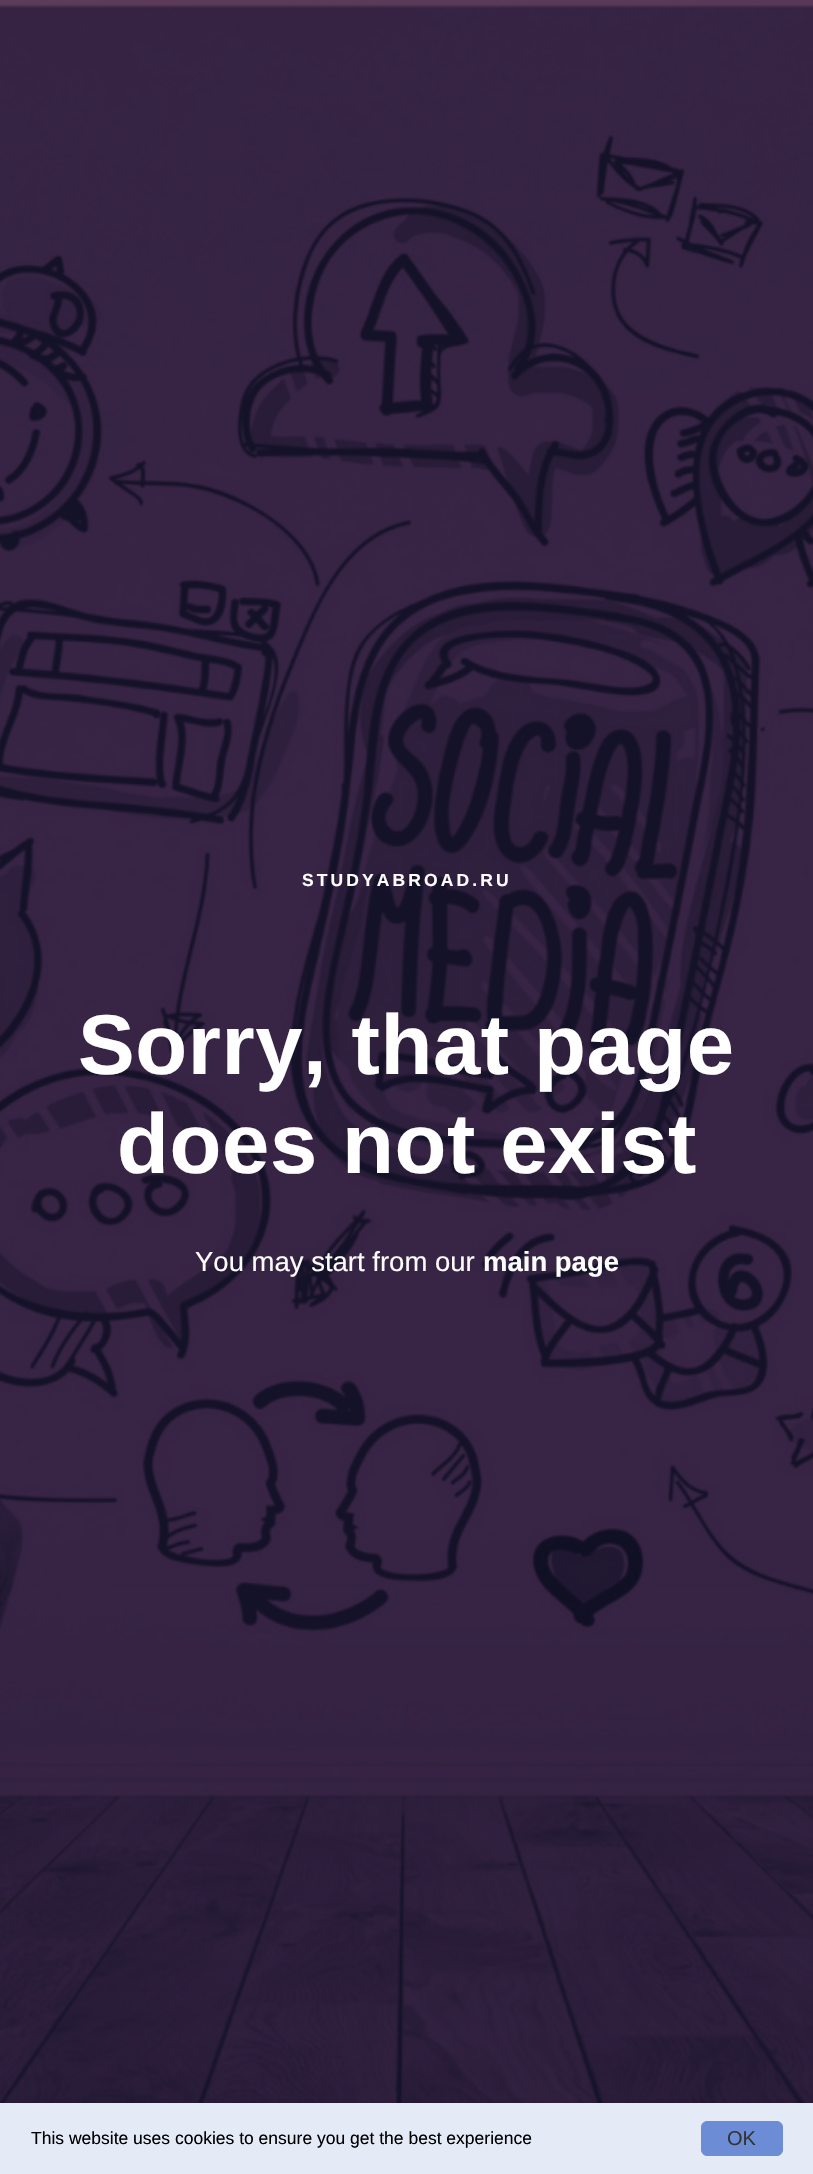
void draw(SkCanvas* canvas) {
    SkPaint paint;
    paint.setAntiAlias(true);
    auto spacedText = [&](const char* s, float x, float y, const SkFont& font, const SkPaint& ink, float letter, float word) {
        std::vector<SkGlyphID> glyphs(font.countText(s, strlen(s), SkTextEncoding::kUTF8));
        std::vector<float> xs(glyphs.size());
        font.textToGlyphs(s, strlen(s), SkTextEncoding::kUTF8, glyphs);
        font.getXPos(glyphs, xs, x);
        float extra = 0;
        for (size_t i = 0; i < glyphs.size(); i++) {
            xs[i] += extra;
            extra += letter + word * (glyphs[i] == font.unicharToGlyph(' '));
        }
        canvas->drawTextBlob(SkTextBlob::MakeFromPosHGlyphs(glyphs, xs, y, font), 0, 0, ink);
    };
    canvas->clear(0xFFFFFFFF);
    canvas->drawImageRect(SkImages::DeferredFromEncodedData(SkData::MakeFromFileName("img1.png")), SkRect::MakeXYWH(0, 0, 813, 2103), SkSamplingOptions());
    SkFont font1(fontMgr->matchFamilyStyle("Liberation Sans", SkFontStyle::Bold()), 17.5f);
    font1.setSubpixel(true);
    paint.setColor(0xFFFFFFFF);
    spacedText("STUDYABROAD.RU", 302, 886, font1, paint, 3.1f, 0);
    SkFont font2(fontMgr->matchFamilyStyle("Liberation Sans", SkFontStyle::Bold()), 85);
    font2.setSubpixel(true);
    spacedText("Sorry, that page", 78, 1074, font2, paint, 0.6f, 0);
    spacedText("does not exist", 117, 1173, font2, paint, 0.6f, 0);
    SkFont font3(fontMgr->matchFamilyStyle("Liberation Sans", SkFontStyle::Normal()), 27.5f);
    font3.setSubpixel(true);
    canvas->drawString("You may start from our", 195, 1271, font3, paint);
    SkFont font4(fontMgr->matchFamilyStyle("Liberation Sans", SkFontStyle::Bold()), 27.5f);
    font4.setSubpixel(true);
    canvas->drawString("main page", 483, 1271, font4, paint);
    paint.setColor(0x1A000000);
    paint.setMaskFilter(SkMaskFilter::MakeBlur(kNormal_SkBlurStyle, 3));
    canvas->drawRect(SkRect::MakeXYWH(0, 2103, 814, 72), paint);
    paint.setMaskFilter(nullptr);
    paint.setColor(0xFFE5EAF7);
    canvas->drawRect(SkRect::MakeXYWH(0, 2103, 813, 71), paint);
    SkFont font5(fontMgr->matchFamilyStyle("Liberation Sans", SkFontStyle::Normal()), 17.5f);
    font5.setSubpixel(true);
    paint.setColor(0xFF000000);
    canvas->drawString("This website uses cookies to ensure you get the best experience", 31, 2144, font5, paint);
    paint.setColor(0xFF6C8CD5);
    canvas->drawRoundRect(SkRect::MakeXYWH(701.5f, 2121.5f, 81, 34), 5.5f, 5.5f, paint);
    paint.setStyle(SkPaint::kStroke_Style);
    paint.setStrokeWidth(1);
    canvas->drawRoundRect(SkRect::MakeXYWH(701.5f, 2121.5f, 81, 34), 5.5f, 5.5f, paint);
    SkFont font6(fontMgr->matchFamilyStyle("Liberation Sans", SkFontStyle::Normal()), 20);
    font6.setSubpixel(true);
    paint.setStyle(SkPaint::kFill_Style);
    paint.setColor(0xFF333333);
    canvas->drawString("OK", 727, 2145, font6, paint);
}
